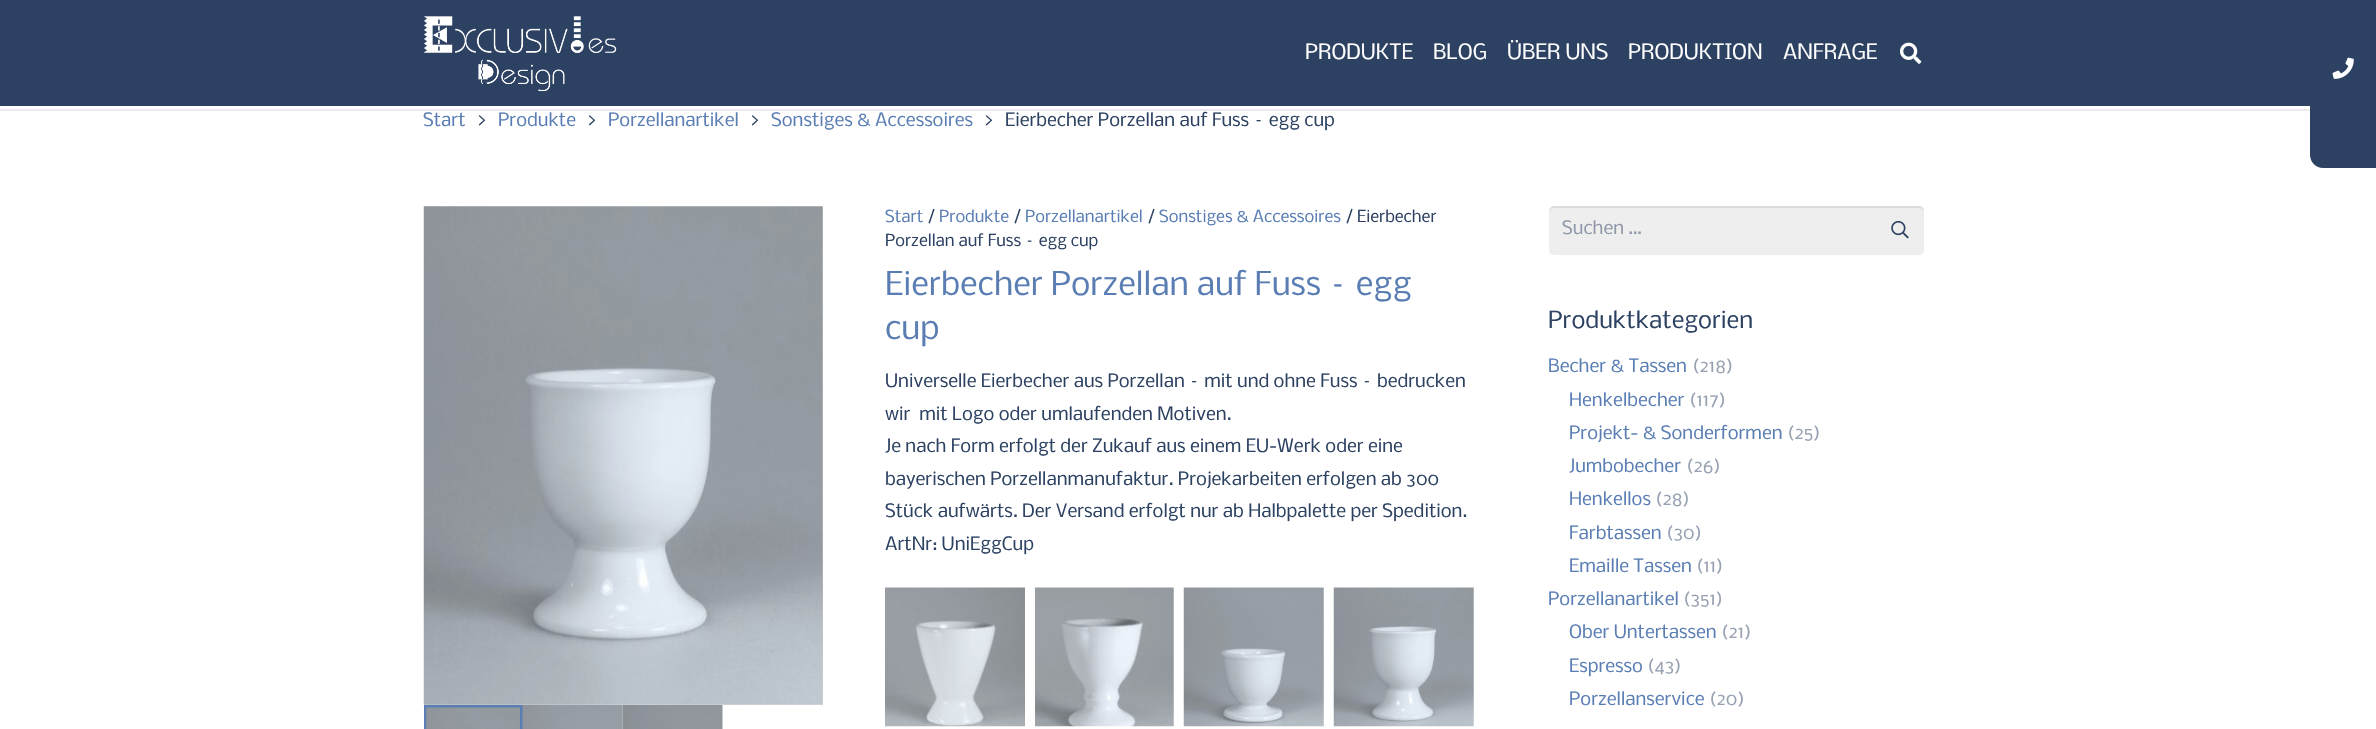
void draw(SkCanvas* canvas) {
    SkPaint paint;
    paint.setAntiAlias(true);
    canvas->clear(0xFFFFFFFF);
    paint.setColor(0xFF2D4262);
    canvas->drawRect(SkRect::MakeXYWH(0, 0, 2376, 106), paint);
    canvas->drawImageRect(SkImages::DeferredFromEncodedData(SkData::MakeFromFileName("img1.png")), SkRect::MakeXYWH(423, 16, 194, 76), SkSamplingOptions());
    SkFont font1(fontMgr->matchFamilyStyle("Nobile", SkFontStyle::Normal()), 20);
    font1.setSubpixel(true);
    paint.setColor(0xFFFFFFFF);
    canvas->drawString("PRODUKTE", 1305, 59, font1, paint);
    canvas->drawString("BLOG", 1433, 59, font1, paint);
    canvas->drawString("ÜBER UNS", 1507, 59, font1, paint);
    canvas->drawString("PRODUKTION", 1628, 59, font1, paint);
    canvas->drawString("ANFRAGE", 1783, 59, font1, paint);
    canvas->drawImageRect(SkImages::DeferredFromEncodedData(SkData::MakeFromFileName("img2.png")), SkRect::MakeXYWH(1900, 42, 22, 22), SkSamplingOptions());
    paint.setColor(0xFFEBEBEB);
    canvas->drawRect(SkRect::MakeXYWH(0, 109, 2310, 2), paint);
    SkFont font2(fontMgr->matchFamilyStyle("Nobile", SkFontStyle::Normal()), 17.5f);
    font2.setSubpixel(true);
    paint.setColor(0xFF5A7EB4);
    canvas->drawString("Start", 423, 126, font2, paint);
    paint.setColor(0xFF2D4262);
    canvas->drawString(">", 476, 126, font2, paint);
    paint.setColor(0xFF5A7EB4);
    canvas->drawString("Produkte", 498, 126, font2, paint);
    paint.setColor(0xFF2D4262);
    canvas->drawString(">", 586, 126, font2, paint);
    paint.setColor(0xFF5A7EB4);
    canvas->drawString("Porzellanartikel", 608, 126, font2, paint);
    paint.setColor(0xFF2D4262);
    canvas->drawString(">", 749, 126, font2, paint);
    paint.setColor(0xFF5A7EB4);
    canvas->drawString("Sonstiges & Accessoires", 771, 126, font2, paint);
    paint.setColor(0xFF2D4262);
    canvas->drawString(">", 983, 126, font2, paint);
    canvas->drawString("Eierbecher Porzellan auf Fuss – egg cup", 1005, 126, font2, paint);
    canvas->drawImageRect(SkImages::DeferredFromEncodedData(SkData::MakeFromFileName("img4.png")), SkRect::MakeXYWH(822, 206, 1, 499), SkSamplingOptions());
    canvas->drawImageRect(SkImages::DeferredFromEncodedData(SkData::MakeFromFileName("img3.png")), SkRect::MakeXYWH(423, 206, 400, 499), SkSamplingOptions());
    paint.setStyle(SkPaint::kStroke_Style);
    paint.setStrokeWidth(3);
    paint.setColor(0xFF5A7EB4);
    canvas->drawRect(SkRect::MakeXYWH(425.5f, 706.5f, 96, 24), paint);
    canvas->drawImageRect(SkImages::DeferredFromEncodedData(SkData::MakeFromFileName("img5.png")), SkRect::MakeXYWH(426, 707, 94, 22), SkSamplingOptions());
    canvas->drawImageRect(SkImages::DeferredFromEncodedData(SkData::MakeFromFileName("img6.png")), SkRect::MakeXYWH(522, 705, 101, 24), SkSamplingOptions());
    canvas->drawImageRect(SkImages::DeferredFromEncodedData(SkData::MakeFromFileName("img7.png")), SkRect::MakeXYWH(622, 705, 101, 24), SkSamplingOptions());
    SkFont font3(fontMgr->matchFamilyStyle("Nobile", SkFontStyle::Normal()), 15.75f);
    font3.setSubpixel(true);
    paint.setStyle(SkPaint::kFill_Style);
    canvas->drawString("Start", 885, 222, font3, paint);
    paint.setColor(0xFF2D4262);
    canvas->drawString("/", 927, 222, font3, paint);
    paint.setColor(0xFF5A7EB4);
    canvas->drawString("Produkte", 939, 222, font3, paint);
    paint.setColor(0xFF2D4262);
    canvas->drawString("/", 1013, 222, font3, paint);
    paint.setColor(0xFF5A7EB4);
    canvas->drawString("Porzellanartikel", 1025, 222, font3, paint);
    paint.setColor(0xFF2D4262);
    canvas->drawString("/", 1147, 222, font3, paint);
    paint.setColor(0xFF5A7EB4);
    canvas->drawString("Sonstiges & Accessoires", 1159, 222, font3, paint);
    paint.setColor(0xFF2D4262);
    canvas->drawString("/ Eierbecher", 1345, 222, font3, paint);
    canvas->drawString("Porzellan auf Fuss – egg cup", 885, 246, font3, paint);
    SkFont font4(fontMgr->matchFamilyStyle("Nobile", SkFontStyle::Normal()), 31.25f);
    font4.setSubpixel(true);
    paint.setColor(0xFF5A7EB4);
    canvas->drawString("Eierbecher Porzellan auf Fuss – egg", 885, 295, font4, paint);
    canvas->drawString("cup", 885, 339, font4, paint);
    paint.setColor(0xFF2D4262);
    canvas->drawString("Universelle Eierbecher aus Porzellan – mit und ohne Fuss – bedrucken", 885, 387, font2, paint);
    canvas->drawString("wir  mit Logo oder umlaufenden Motiven.", 885, 420, font2, paint);
    canvas->drawString("Je nach Form erfolgt der Zukauf aus einem EU-Werk oder eine", 885, 452, font2, paint);
    canvas->drawString("bayerischen Porzellanmanufaktur. Projekarbeiten erfolgen ab 300", 885, 485, font2, paint);
    canvas->drawString("Stück aufwärts. Der Versand erfolgt nur ab Halbpalette per Spedition.", 885, 517, font2, paint);
    canvas->drawString("ArtNr: UniEggCup", 885, 550, font2, paint);
    canvas->drawImageRect(SkImages::DeferredFromEncodedData(SkData::MakeFromFileName("img8.png")), SkRect::MakeXYWH(885, 587, 140, 140), SkSamplingOptions());
    canvas->drawImageRect(SkImages::DeferredFromEncodedData(SkData::MakeFromFileName("img9.png")), SkRect::MakeXYWH(1035, 587, 139, 140), SkSamplingOptions());
    canvas->drawImageRect(SkImages::DeferredFromEncodedData(SkData::MakeFromFileName("img10.png")), SkRect::MakeXYWH(1183, 587, 141, 140), SkSamplingOptions());
    canvas->drawImageRect(SkImages::DeferredFromEncodedData(SkData::MakeFromFileName("img11.png")), SkRect::MakeXYWH(1333, 587, 141, 140), SkSamplingOptions());
    paint.setColor(0xFFEEEEEE);
    canvas->drawRoundRect(SkRect::MakeXYWH(1549, 206, 375, 49), 5, 5, paint);
    paint.setColor(0x14000000);
    canvas->drawPath(SkPathBuilder().moveTo(1554, 208).lineTo(1918, 208).cubicTo(1921, 208, 1924, 210, 1924, 213).cubicTo(1924, 210, 1923, 206, 1919, 206).lineTo(1554, 206).cubicTo(1550, 206, 1549, 210, 1549, 213).cubicTo(1549, 210, 1551, 208, 1554, 208).close().detach(), paint);
    paint.setColor(0xFF8E98A8);
    canvas->drawString("Suchen …", 1562, 234, font2, paint);
    canvas->drawImageRect(SkImages::DeferredFromEncodedData(SkData::MakeFromFileName("img12.png")), SkRect::MakeXYWH(1891, 220, 18, 19), SkSamplingOptions());
    SkFont font5(fontMgr->matchFamilyStyle("Nobile", SkFontStyle::Normal()), 22.5f);
    font5.setSubpixel(true);
    paint.setColor(0xFF2D4262);
    canvas->drawString("Produktkategorien", 1548, 328, font5, paint);
    paint.setColor(0xFF5A7EB4);
    canvas->drawString("Becher & Tassen", 1548, 372, font2, paint);
    paint.setColor(0xFF96A1B1);
    canvas->drawString("(218)", 1692, 372, font2, paint);
    paint.setColor(0xFF5A7EB4);
    canvas->drawString("Henkelbecher", 1569, 406, font2, paint);
    paint.setColor(0xFF96A1B1);
    canvas->drawString("(117)", 1689, 406, font2, paint);
    paint.setColor(0xFF5A7EB4);
    canvas->drawString("Projekt- & Sonderformen", 1569, 439, font2, paint);
    paint.setColor(0xFF96A1B1);
    canvas->drawString("(25)", 1787, 439, font2, paint);
    paint.setColor(0xFF5A7EB4);
    canvas->drawString("Jumbobecher", 1569, 472, font2, paint);
    paint.setColor(0xFF96A1B1);
    canvas->drawString("(26)", 1686, 472, font2, paint);
    paint.setColor(0xFF5A7EB4);
    canvas->drawString("Henkellos", 1569, 505, font2, paint);
    paint.setColor(0xFF96A1B1);
    canvas->drawString("(28)", 1655, 505, font2, paint);
    paint.setColor(0xFF5A7EB4);
    canvas->drawString("Farbtassen", 1569, 539, font2, paint);
    paint.setColor(0xFF96A1B1);
    canvas->drawString("(30)", 1666, 539, font2, paint);
    paint.setColor(0xFF5A7EB4);
    canvas->drawString("Emaille Tassen", 1569, 572, font2, paint);
    paint.setColor(0xFF96A1B1);
    canvas->drawString("(11)", 1696, 572, font2, paint);
    paint.setColor(0xFF5A7EB4);
    canvas->drawString("Porzellanartikel", 1548, 605, font2, paint);
    paint.setColor(0xFF96A1B1);
    canvas->drawString("(351)", 1683, 605, font2, paint);
    paint.setColor(0xFF5A7EB4);
    canvas->drawString("Ober Untertassen", 1569, 638, font2, paint);
    paint.setColor(0xFF96A1B1);
    canvas->drawString("(21)", 1721, 638, font2, paint);
    paint.setColor(0xFF5A7EB4);
    canvas->drawString("Espresso", 1569, 672, font2, paint);
    paint.setColor(0xFF96A1B1);
    canvas->drawString("(43)", 1647, 672, font2, paint);
    paint.setColor(0xFF5A7EB4);
    canvas->drawString("Porzellanservice", 1569, 705, font2, paint);
    paint.setColor(0xFF96A1B1);
    canvas->drawString("(20)", 1709, 705, font2, paint);
    canvas->drawImageRect(SkImages::DeferredFromEncodedData(SkData::MakeFromFileName("img13.png")), SkRect::MakeXYWH(2332, 57, 22, 22), SkSamplingOptions());
    paint.setColor(0xFF2D4262);
    canvas->drawPath(SkPathBuilder().moveTo(2310, 101).lineTo(2376, 101).lineTo(2376, 168).lineTo(2323, 168).cubicTo(2316, 168, 2310, 162, 2310, 155).close().detach(), paint);
}
